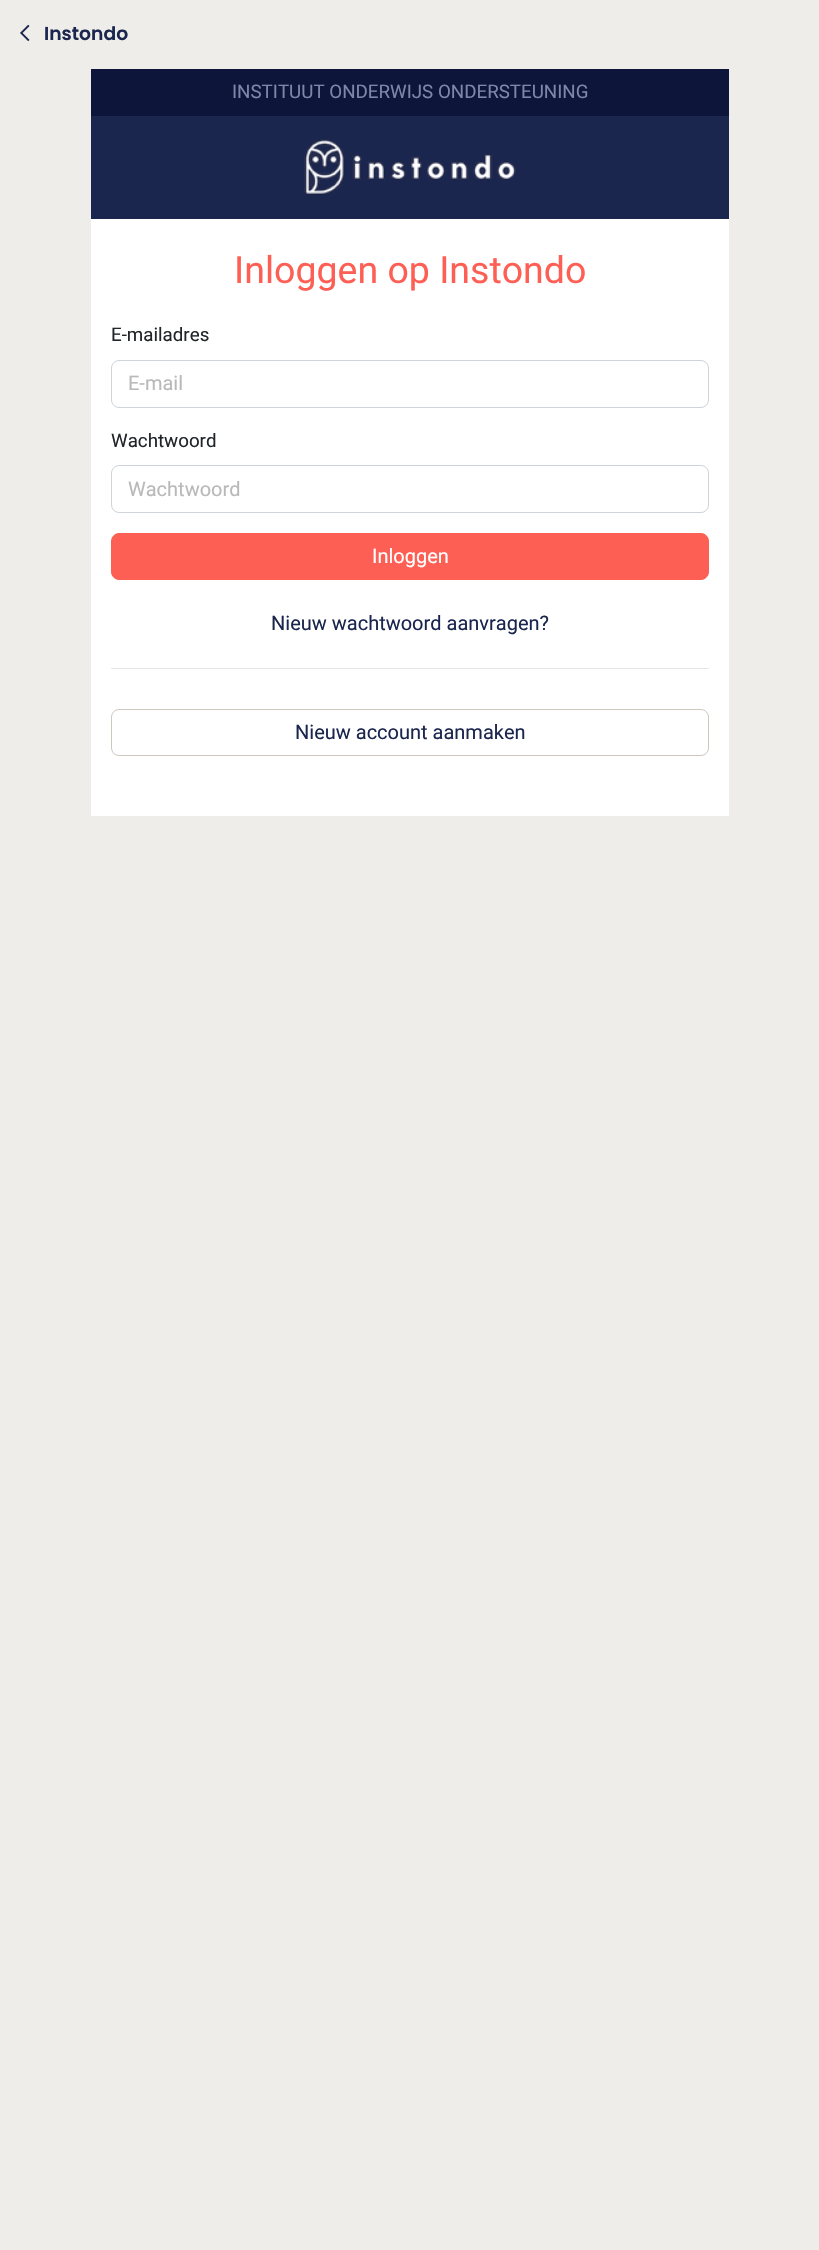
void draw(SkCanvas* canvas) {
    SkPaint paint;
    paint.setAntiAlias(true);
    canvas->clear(0xFFEFEDE9);
    canvas->drawImageRect(SkImages::DeferredFromEncodedData(SkData::MakeFromFileName("img1.png")), SkRect::MakeXYWH(20, 24, 10, 17), SkSamplingOptions());
    SkFont font1(fontMgr->matchFamilyStyle("Poppins", SkFontStyle(600, SkFontStyle::kNormal_Width, SkFontStyle::kUpright_Slant)), 18.75f);
    font1.setSubpixel(true);
    paint.setColor(0xFF1B264F);
    canvas->drawString("Instondo", 44, 40, font1, paint);
    paint.setColor(0xFFFFFFFF);
    canvas->drawRect(SkRect::MakeXYWH(91, 219, 638, 597), paint);
    paint.setColor(0xFF0D163A);
    canvas->drawRect(SkRect::MakeXYWH(91, 69, 638, 47), paint);
    SkFont font2(fontMgr->matchFamilyStyle("Roboto", SkFontStyle::Normal()), 18.75f);
    font2.setSubpixel(true);
    paint.setColor(0xFF7E86A9);
    canvas->drawString("INSTITUUT ONDERWIJS ONDERSTEUNING", 232, 98, font2, paint);
    paint.setColor(0xFF1B264F);
    canvas->drawRect(SkRect::MakeXYWH(91, 116, 638, 103), paint);
    canvas->drawImageRect(SkImages::DeferredFromEncodedData(SkData::MakeFromFileName("img2.png")), SkRect::MakeXYWH(304, 139, 212, 56), SkSamplingOptions());
    SkFont font3(fontMgr->matchFamilyStyle("Roboto", SkFontStyle::Normal()), 37.5f);
    font3.setSubpixel(true);
    paint.setColor(0xFFFE5F55);
    canvas->drawString("Inloggen op Instondo", 234, 283, font3, paint);
    paint.setColor(0xFF212529);
    canvas->drawString("E-mailadres", 111, 341, font2, paint);
    paint.setStyle(SkPaint::kStroke_Style);
    paint.setStrokeWidth(1);
    paint.setColor(0xFFCED4DA);
    canvas->drawRoundRect(SkRect::MakeXYWH(111.5f, 360.5f, 597, 47), 7.5f, 7.5f, paint);
    SkFont font4(fontMgr->matchFamilyStyle("Roboto", SkFontStyle::Normal()), 20);
    font4.setSubpixel(true);
    paint.setStyle(SkPaint::kFill_Style);
    paint.setColor(0xFFB9B9B9);
    canvas->drawString("E-mail", 128, 390, font4, paint);
    paint.setColor(0xFF212529);
    canvas->drawString("Wachtwoord", 111, 447, font2, paint);
    paint.setStyle(SkPaint::kStroke_Style);
    paint.setColor(0xFFCED4DA);
    canvas->drawRoundRect(SkRect::MakeXYWH(111.5f, 465.5f, 597, 47), 7.5f, 7.5f, paint);
    paint.setStyle(SkPaint::kFill_Style);
    paint.setColor(0xFFB9B9B9);
    canvas->drawString("Wachtwoord", 128, 496, font4, paint);
    paint.setColor(0xFFFE5F55);
    canvas->drawRoundRect(SkRect::MakeXYWH(111.5f, 533.5f, 597, 46), 7.5f, 7.5f, paint);
    paint.setStyle(SkPaint::kStroke_Style);
    canvas->drawRoundRect(SkRect::MakeXYWH(111.5f, 533.5f, 597, 46), 7.5f, 7.5f, paint);
    paint.setStyle(SkPaint::kFill_Style);
    paint.setColor(0xFFFFFFFF);
    canvas->drawString("Inloggen", 372, 563, font4, paint);
    paint.setColor(0xFF1B264F);
    canvas->drawString("Nieuw wachtwoord aanvragen?", 271, 630, font4, paint);
    paint.setColor(0xFFE6E6E6);
    canvas->drawRect(SkRect::MakeXYWH(111, 668, 598, 1), paint);
    paint.setStyle(SkPaint::kStroke_Style);
    paint.setColor(0xFFCFC8BF);
    canvas->drawRoundRect(SkRect::MakeXYWH(111.5f, 709.5f, 597, 46), 7.5f, 7.5f, paint);
    paint.setStyle(SkPaint::kFill_Style);
    paint.setColor(0xFF1B264F);
    canvas->drawString("Nieuw account aanmaken", 295, 739, font4, paint);
}
